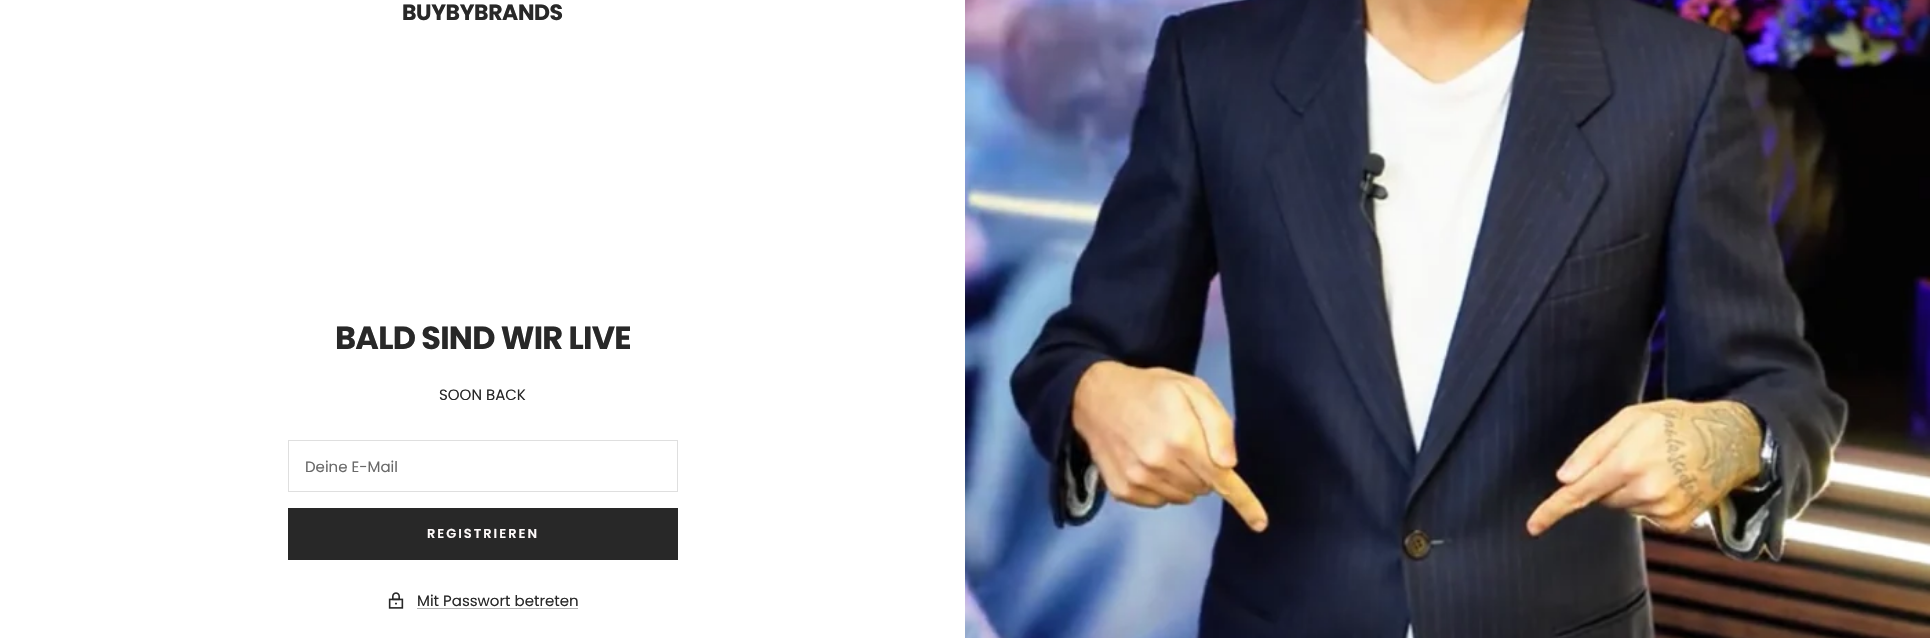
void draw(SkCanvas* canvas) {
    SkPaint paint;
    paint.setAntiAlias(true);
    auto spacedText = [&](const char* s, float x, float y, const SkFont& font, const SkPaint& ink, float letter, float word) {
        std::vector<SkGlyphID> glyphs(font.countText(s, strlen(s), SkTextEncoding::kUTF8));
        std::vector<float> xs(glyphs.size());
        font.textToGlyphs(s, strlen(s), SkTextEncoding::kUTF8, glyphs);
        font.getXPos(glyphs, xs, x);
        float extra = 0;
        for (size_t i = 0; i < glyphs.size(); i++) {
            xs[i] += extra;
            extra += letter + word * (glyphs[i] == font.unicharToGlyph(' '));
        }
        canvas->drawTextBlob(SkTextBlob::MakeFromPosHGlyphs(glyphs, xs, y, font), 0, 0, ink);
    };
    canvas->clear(0xFFFFFFFF);
    SkFont font1(fontMgr->matchFamilyStyle("Poppins", SkFontStyle::Bold()), 22);
    font1.setSubpixel(true);
    paint.setColor(0xFF282828);
    spacedText("BUYBYBRANDS", 402, 20, font1, paint, -0.4f, 0);
    SkFont font2(fontMgr->matchFamilyStyle("Poppins", SkFontStyle::Bold()), 32);
    font2.setSubpixel(true);
    spacedText("BALD SIND WIR LIVE", 335, 349, font2, paint, -0.75f, 0);
    SkFont font3(fontMgr->matchFamilyStyle("Poppins", SkFontStyle::Normal()), 15);
    font3.setSubpixel(true);
    canvas->drawString("SOON BACK", 439, 400, font3, paint);
    paint.setStyle(SkPaint::kStroke_Style);
    paint.setStrokeWidth(1);
    paint.setColor(0xFFDFDFDF);
    canvas->drawRect(SkRect::MakeXYWH(288.5f, 440.5f, 389, 51), paint);
    paint.setStyle(SkPaint::kFill_Style);
    paint.setColor(0xFF696969);
    canvas->drawString("Deine E-Mail", 305, 472, font3, paint);
    paint.setColor(0xFF282828);
    canvas->drawRect(SkRect::MakeXYWH(288, 508, 390, 52), paint);
    SkFont font4(fontMgr->matchFamilyStyle("Poppins", SkFontStyle(600, SkFontStyle::kNormal_Width, SkFontStyle::kUpright_Slant)), 13);
    font4.setSubpixel(true);
    paint.setColor(0xFFFFFBFB);
    spacedText("REGISTRIEREN", 427, 538, font4, paint, 2, 0);
    canvas->drawImageRect(SkImages::DeferredFromEncodedData(SkData::MakeFromFileName("img1.png")), SkRect::MakeXYWH(388, 592, 16, 17), SkSamplingOptions());
    paint.setColor(0xFF282828);
    canvas->drawString("Mit Passwort betreten", 417, 606, font3, paint);
    paint.setColor(0xFFB4B4B4);
    canvas->drawRect(SkRect::MakeXYWH(417, 608, 161, 1), paint);
    canvas->drawImageRect(SkImages::DeferredFromEncodedData(SkData::MakeFromFileName("img2.png")), SkRect::MakeXYWH(965, 0, 965, 638), SkSamplingOptions());
}
